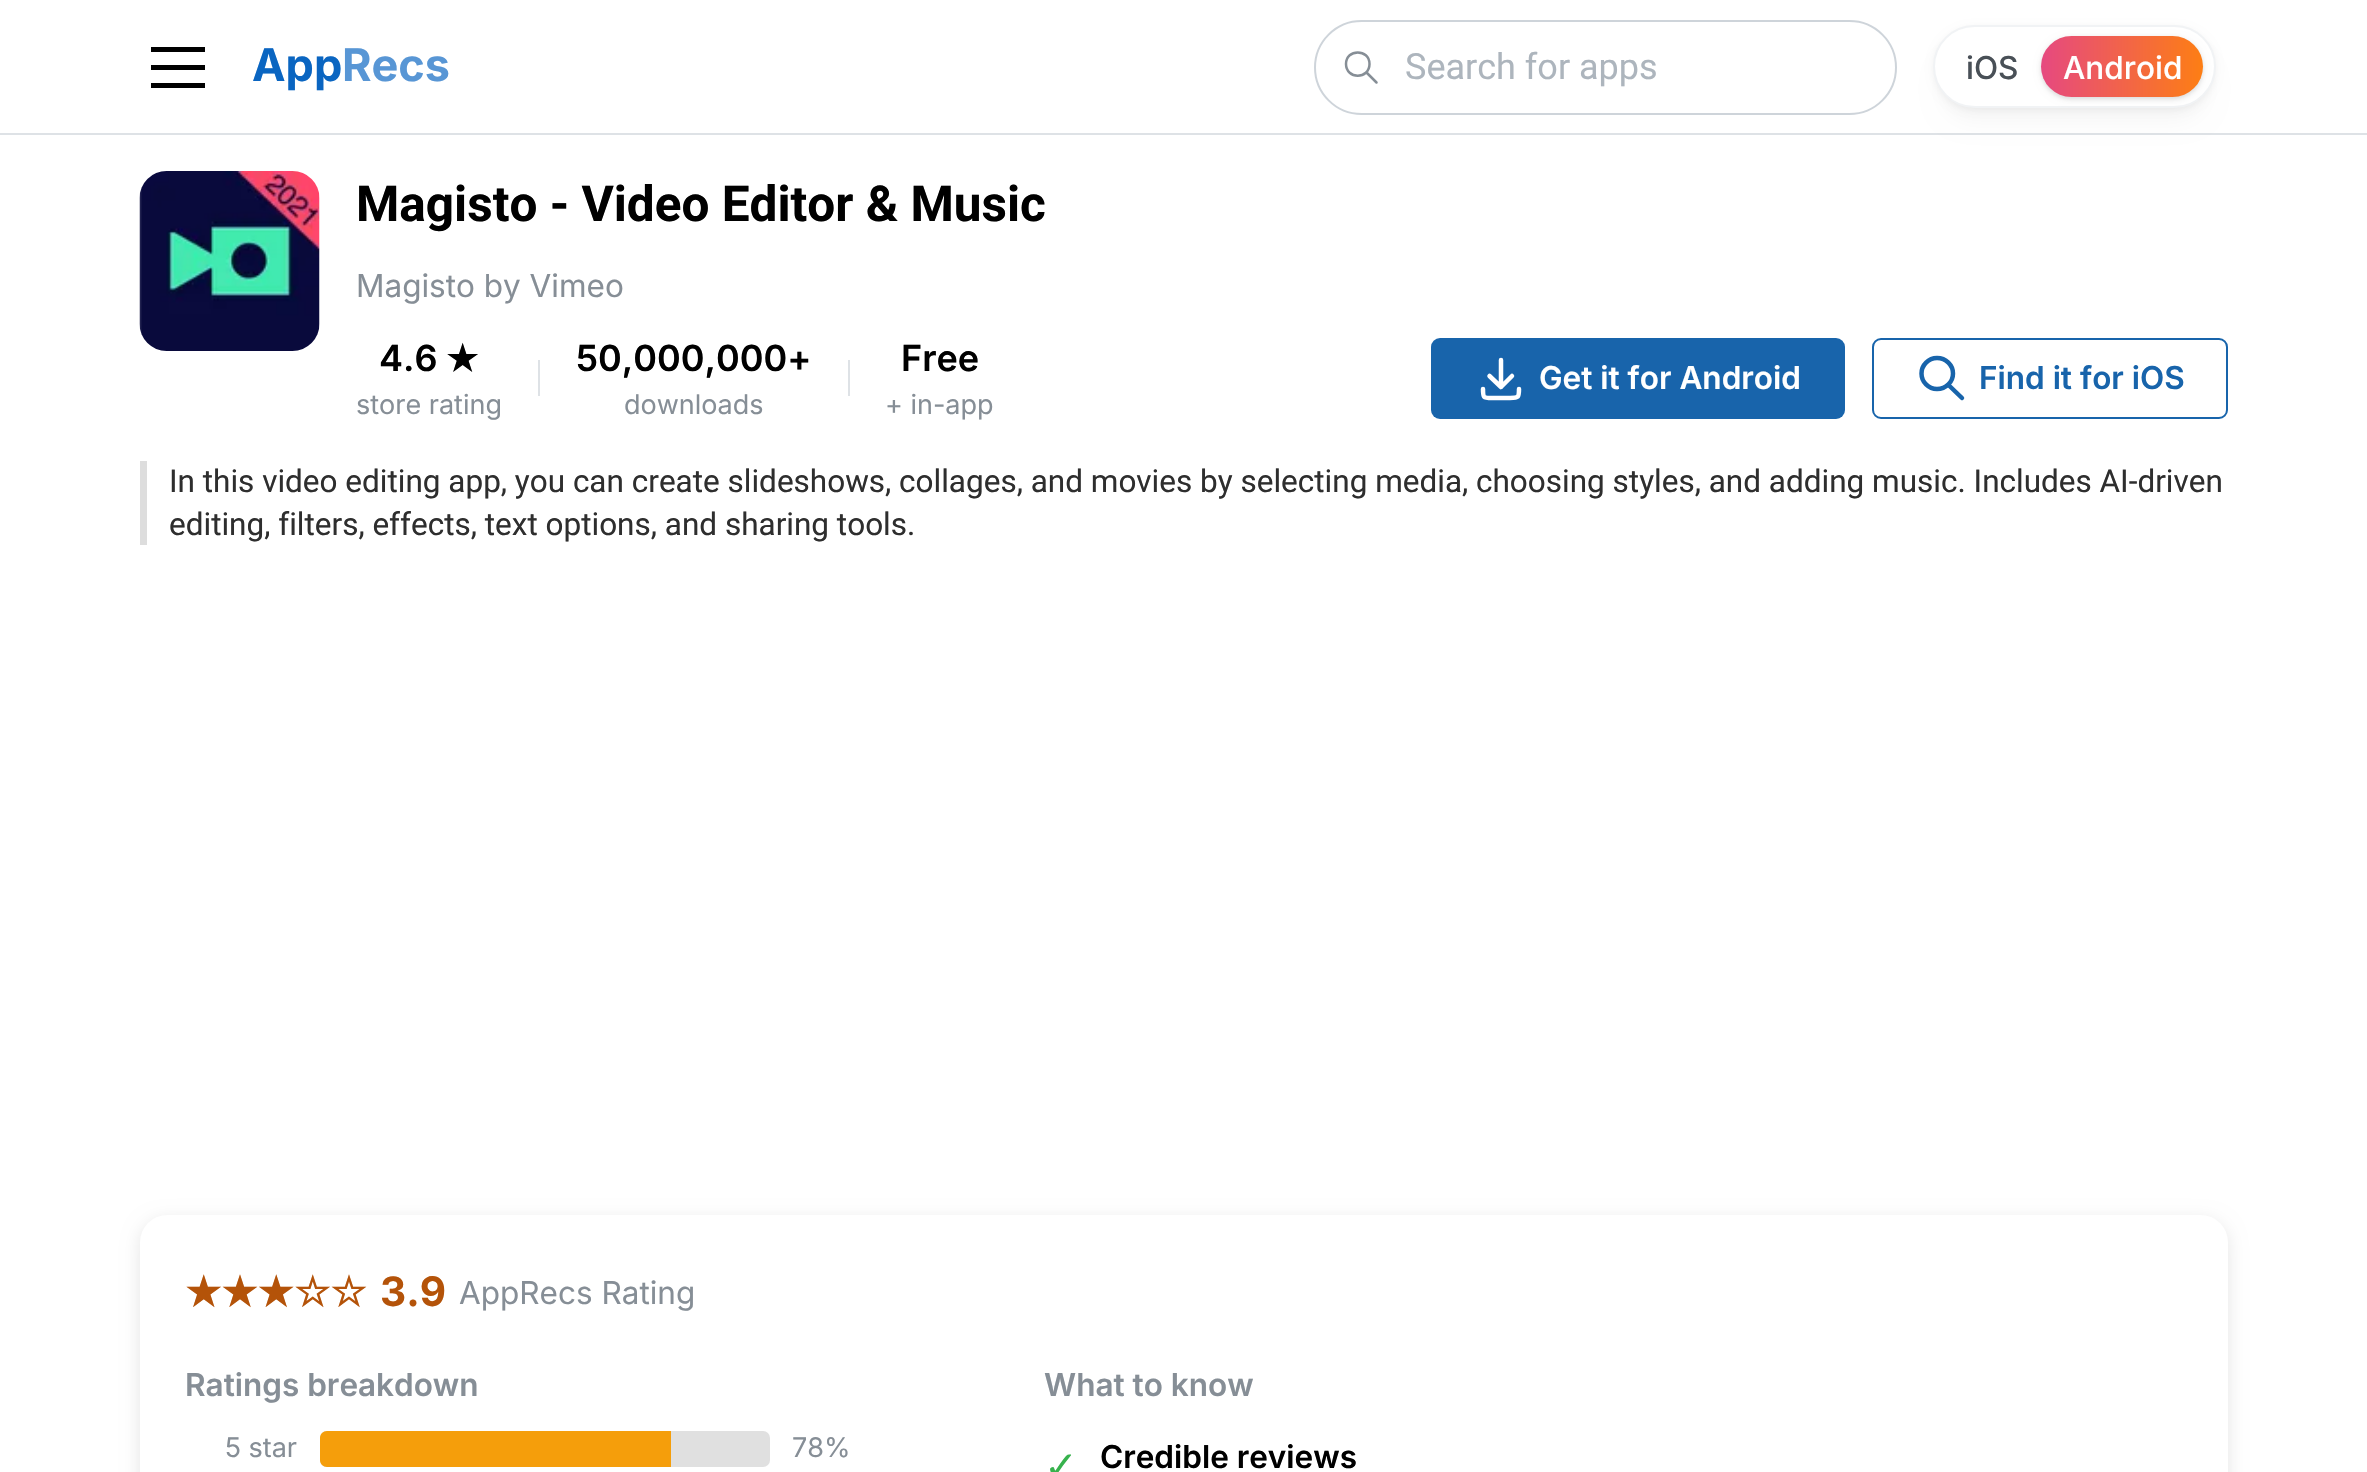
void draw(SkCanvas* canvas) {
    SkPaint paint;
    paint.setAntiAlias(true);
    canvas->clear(0xFFFFFFFF);
    paint.setColor(0xFFDEE2E6);
    canvas->drawRect(SkRect::MakeXYWH(0, 133, 2367, 2), paint);
    paint.setColor(0xFF000000);
    canvas->drawRect(SkRect::MakeXYWH(151, 65, 54, 5), paint);
    canvas->drawRect(SkRect::MakeXYWH(151, 47, 54, 5), paint);
    canvas->drawRect(SkRect::MakeXYWH(151, 83, 54, 5), paint);
    SkFont font1(fontMgr->matchFamilyStyle("Inter", SkFontStyle::Bold()), 45);
    font1.setSubpixel(true);
    paint.setColor(0xFF0A65C1);
    canvas->drawString("App", 252, 81, font1, paint);
    paint.setColor(0xFF5896D5);
    canvas->drawString("Recs", 342, 81, font1, paint);
    paint.setStyle(SkPaint::kStroke_Style);
    paint.setStrokeWidth(2);
    paint.setColor(0xFFCED4DA);
    canvas->drawRoundRect(SkRect::MakeXYWH(1315, 21, 581, 93), 46.5f, 46.5f, paint);
    paint.setStrokeWidth(2.5f);
    paint.setStrokeCap(SkPaint::kRound_Cap);
    paint.setStrokeJoin(SkPaint::kRound_Join);
    paint.setColor(0xFF868E96);
    canvas->drawPath(SkPathBuilder().moveTo(1346, 64).cubicTo(1346, 79.5f, 1369.5f, 79.5f, 1369.5f, 64).cubicTo(1369.5f, 48.5f, 1346, 48.5f, 1346, 64).moveTo(1376.5f, 82.5f).lineTo(1366.5f, 72.5f).detach(), paint);
    SkFont font2(fontMgr->matchFamilyStyle("Roboto", SkFontStyle::Normal()), 36);
    font2.setSubpixel(true);
    paint.setStyle(SkPaint::kFill_Style);
    paint.setColor(0xFFADB5BD);
    canvas->drawString("Search for apps", 1405, 79, font2, paint);
    paint.setColor(0x0A000000);
    paint.setMaskFilter(SkMaskFilter::MakeBlur(kNormal_SkBlurStyle, 11));
    canvas->drawRoundRect(SkRect::MakeXYWH(1944, 59, 261, 60), 30, 30, paint);
    paint.setMaskFilter(nullptr);
    paint.setColor(0x0D000000);
    paint.setMaskFilter(SkMaskFilter::MakeBlur(kNormal_SkBlurStyle, 3.5f));
    canvas->drawRoundRect(SkRect::MakeXYWH(1933, 27, 283, 83), 41.5f, 41.5f, paint);
    paint.setMaskFilter(nullptr);
    paint.setColor(0xFFFFFFFF);
    canvas->drawRoundRect(SkRect::MakeXYWH(1934, 26, 281, 81), 40.5f, 40.5f, paint);
    paint.setStyle(SkPaint::kStroke_Style);
    paint.setStrokeWidth(2);
    paint.setStrokeCap(SkPaint::kButt_Cap);
    paint.setStrokeJoin(SkPaint::kMiter_Join);
    paint.setColor(0xFFF1F3F5);
    canvas->drawRoundRect(SkRect::MakeXYWH(1934, 26, 281, 81), 40.5f, 40.5f, paint);
    SkFont font3(fontMgr->matchFamilyStyle("Inter", SkFontStyle(500, SkFontStyle::kNormal_Width, SkFontStyle::kUpright_Slant)), 31.5f);
    font3.setSubpixel(true);
    paint.setStyle(SkPaint::kFill_Style);
    paint.setColor(0xFF495057);
    canvas->drawString("iOS", 1966, 79, font3, paint);
    paint.setColor(0x1A000000);
    paint.setMaskFilter(SkMaskFilter::MakeBlur(kNormal_SkBlurStyle, 2));
    canvas->drawRoundRect(SkRect::MakeXYWH(2041, 38, 162, 61), 30.5f, 30.5f, paint);
    paint.setMaskFilter(nullptr);
    paint.setColor(0x0D000000);
    paint.setMaskFilter(SkMaskFilter::MakeBlur(kNormal_SkBlurStyle, 3.5f));
    canvas->drawRoundRect(SkRect::MakeXYWH(2041, 38, 162, 61), 30.5f, 30.5f, paint);
    paint.setMaskFilter(nullptr);
    {
        const SkColor colors[] = {0xFFE64980, 0xFFFD7E14};
        const float stops[] = {0, 1};
        const SkPoint ends[] = {{2041, 66}, {2203, 66}};
        paint.setShader(SkGradientShader::MakeLinear(ends, colors, stops, 2, SkTileMode::kClamp));
        paint.setAlpha(255);
    }
    canvas->drawRoundRect(SkRect::MakeXYWH(2041, 36, 162, 61), 30.5f, 30.5f, paint);
    paint.setShader(nullptr);
    paint.setColor(0xFFFFFFFF);
    canvas->drawString("Android", 2063, 79, font3, paint);
    canvas->drawImageRect(SkImages::DeferredFromEncodedData(SkData::MakeFromFileName("img1.png")), SkRect::MakeXYWH(139, 171, 181, 180), SkSamplingOptions());
    SkFont font4(fontMgr->matchFamilyStyle("Roboto", SkFontStyle::Bold()), 49.5f);
    font4.setSubpixel(true);
    paint.setColor(0xFF000000);
    canvas->drawString("Magisto - Video Editor & Music", 356, 221, font4, paint);
    SkFont font5(fontMgr->matchFamilyStyle("Inter", SkFontStyle::Normal()), 31.5f);
    font5.setSubpixel(true);
    paint.setColor(0xFF868E96);
    canvas->drawString("Magisto by Vimeo", 356, 297, font5, paint);
    SkFont font6(fontMgr->matchFamilyStyle("Inter", SkFontStyle(600, SkFontStyle::kNormal_Width, SkFontStyle::kUpright_Slant)), 36);
    font6.setSubpixel(true);
    paint.setColor(0xFF000000);
    canvas->drawString("4.6", 379, 371, font6, paint);
    SkFont font7(fontMgr->matchFamilyStyle("DejaVu Sans", SkFontStyle::Bold()), 36);
    font7.setSubpixel(true);
    canvas->drawString("★", 446, 371, font7, paint);
    SkFont font8(fontMgr->matchFamilyStyle("Inter", SkFontStyle::Normal()), 27);
    font8.setSubpixel(true);
    paint.setColor(0xFF868E96);
    canvas->drawString("store rating", 356, 414, font8, paint);
    paint.setColor(0xFFDEE2E6);
    canvas->drawRect(SkRect::MakeXYWH(538, 360, 2, 36), paint);
    paint.setColor(0xFF000000);
    canvas->drawString("50,000,000+", 576, 371, font6, paint);
    paint.setColor(0xFF868E96);
    canvas->drawString("downloads", 624, 414, font8, paint);
    paint.setColor(0xFFDEE2E6);
    canvas->drawRect(SkRect::MakeXYWH(848, 360, 2, 36), paint);
    paint.setColor(0xFF000000);
    canvas->drawString("Free", 901, 371, font6, paint);
    paint.setColor(0xFF868E96);
    canvas->drawString("+ in-app", 885, 414, font8, paint);
    paint.setColor(0xFF1864AB);
    canvas->drawRoundRect(SkRect::MakeXYWH(1431, 338, 414, 81), 9, 9, paint);
    paint.setStyle(SkPaint::kStroke_Style);
    paint.setStrokeWidth(4.5f);
    paint.setStrokeCap(SkPaint::kRound_Cap);
    paint.setStrokeJoin(SkPaint::kRound_Join);
    paint.setColor(0xFFFFFFFF);
    canvas->drawPath(SkPathBuilder().moveTo(1483, 389).cubicTo(1483, 397.5f, 1483, 398, 1492, 398).lineTo(1510, 398).cubicTo(1518.5f, 398, 1519, 397.5f, 1519, 389).moveTo(1489.5f, 376).lineTo(1501, 387).lineTo(1512, 376).moveTo(1501, 360).lineTo(1501, 387).detach(), paint);
    SkFont font9(fontMgr->matchFamilyStyle("Inter", SkFontStyle(600, SkFontStyle::kNormal_Width, SkFontStyle::kUpright_Slant)), 31.5f);
    font9.setSubpixel(true);
    paint.setStyle(SkPaint::kFill_Style);
    canvas->drawString("Get it for Android", 1539, 389, font9, paint);
    paint.setStyle(SkPaint::kStroke_Style);
    paint.setStrokeWidth(2);
    paint.setStrokeCap(SkPaint::kButt_Cap);
    paint.setStrokeJoin(SkPaint::kMiter_Join);
    paint.setColor(0xFF1864AB);
    canvas->drawRoundRect(SkRect::MakeXYWH(1873, 339, 354, 79), 8, 8, paint);
    paint.setStrokeWidth(4.5f);
    paint.setStrokeCap(SkPaint::kRound_Cap);
    paint.setStrokeJoin(SkPaint::kRound_Join);
    canvas->drawPath(SkPathBuilder().moveTo(1921.5f, 373.5f).cubicTo(1921.5f, 382, 1928.5f, 389, 1937, 389).cubicTo(1946, 389, 1953, 382, 1953, 373.5f).cubicTo(1953, 365, 1946, 358, 1937, 358).cubicTo(1928.5f, 358, 1921.5f, 365, 1921.5f, 373.5f).moveTo(1962, 398).lineTo(1948.5f, 385).detach(), paint);
    paint.setStyle(SkPaint::kFill_Style);
    canvas->drawString("Find it for iOS", 1979, 389, font9, paint);
    paint.setColor(0xFFDDDDDD);
    canvas->drawRect(SkRect::MakeXYWH(140, 461, 7, 84), paint);
    SkFont font10(fontMgr->matchFamilyStyle("Roboto", SkFontStyle::Normal()), 31.5f);
    font10.setSubpixel(true);
    paint.setColor(0xFF2E2E2E);
    canvas->drawString("In this video editing app, you can create slideshows, collages, and movies by selecting media, choosing styles, and adding music. Includes AI-driven", 169, 492, font10, paint);
    canvas->drawString("editing, filters, effects, text options, and sharing tools.", 169, 535, font10, paint);
    paint.setColor(0x1A000000);
    paint.setMaskFilter(SkMaskFilter::MakeBlur(kNormal_SkBlurStyle, 9));
    canvas->drawRoundRect(SkRect::MakeXYWH(140, 1220, 2088, 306), 27, 27, paint);
    paint.setMaskFilter(nullptr);
    paint.setColor(0xFFFFFFFF);
    canvas->drawRoundRect(SkRect::MakeXYWH(140, 1215, 2088, 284), 27, 27, paint);
    SkFont font11(fontMgr->matchFamilyStyle("DejaVu Sans", SkFontStyle::Bold()), 40.5f);
    font11.setSubpixel(true);
    paint.setColor(0xFFB45309);
    canvas->drawString("★★★☆☆", 185, 1306, font11, paint);
    SkFont font12(fontMgr->matchFamilyStyle("Inter", SkFontStyle::Bold()), 40.5f);
    font12.setSubpixel(true);
    canvas->drawString("3.9", 380, 1306, font12, paint);
    paint.setColor(0xFF868E96);
    canvas->drawString("AppRecs Rating", 459, 1304, font5, paint);
    canvas->drawString("Ratings breakdown", 185, 1396, font9, paint);
    canvas->drawString("5 star", 225, 1457, font8, paint);
    paint.setColor(0xFFE0E0E0);
    canvas->drawRoundRect(SkRect::MakeXYWH(320, 1431, 450, 36), 7, 7, paint);
    paint.setColor(0xFFF59E0B);
    canvas->drawPath(SkPathBuilder().moveTo(327, 1431).lineTo(671, 1431).lineTo(671, 1467).lineTo(327, 1467).cubicTo(323, 1467, 320, 1464, 320, 1460).lineTo(320, 1438).cubicTo(320, 1434, 323, 1431, 327, 1431).close().detach(), paint);
    paint.setColor(0xFF868E96);
    canvas->drawString("78%", 792, 1457, font8, paint);
    canvas->drawString("What to know", 1044, 1396, font9, paint);
    SkFont font13(fontMgr->matchFamilyStyle("DejaVu Sans", SkFontStyle::Normal()), 40.5f);
    font13.setSubpixel(true);
    paint.setColor(0xFF37B24D);
    canvas->drawString("✓", 1044, 1480, font13, paint);
    paint.setColor(0xFF000000);
    canvas->drawString("Credible reviews", 1100, 1468, font9, paint);
}
